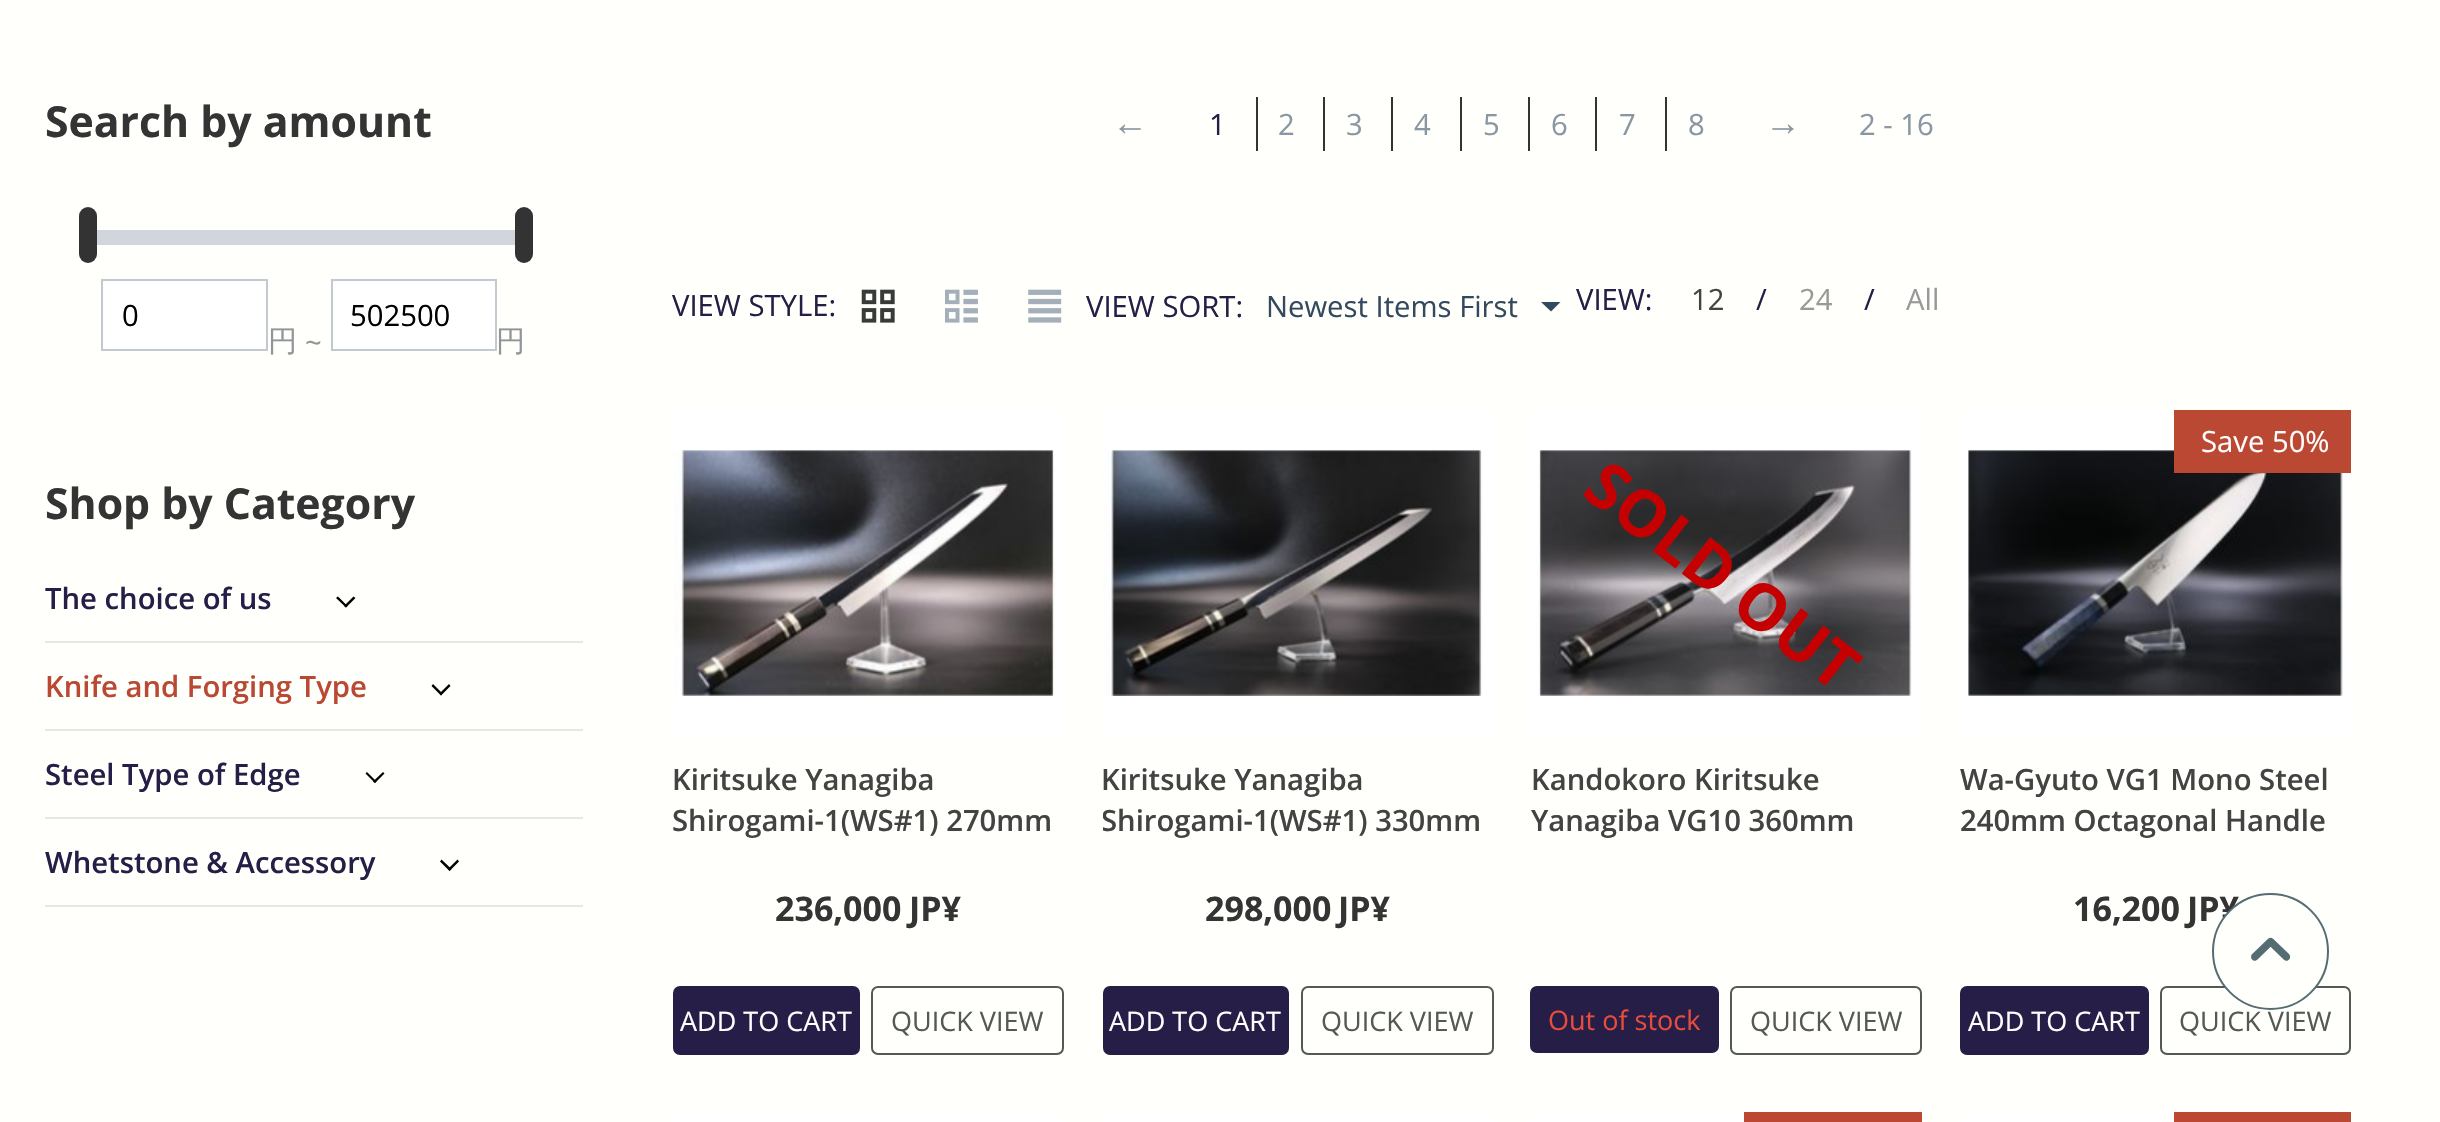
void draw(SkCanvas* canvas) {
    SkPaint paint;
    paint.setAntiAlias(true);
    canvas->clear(0xFFFFFFFB);
    SkFont font1(fontMgr->matchFamilyStyle("Open Sans", SkFontStyle::Bold()), 42.75f);
    font1.setSubpixel(true);
    paint.setColor(0xFF343434);
    canvas->drawString("Search by amount", 45, 137, font1, paint);
    paint.setColor(0xFF333333);
    canvas->drawRoundRect(SkRect::MakeXYWH(79, 207, 18, 56), 9, 9, paint);
    paint.setColor(0xFFD0D6DB);
    canvas->drawRect(SkRect::MakeXYWH(97, 230, 418, 15), paint);
    paint.setColor(0xFF333333);
    canvas->drawRoundRect(SkRect::MakeXYWH(515, 207, 18, 56), 9, 9, paint);
    paint.setColor(0xFFFFFFFF);
    canvas->drawRect(SkRect::MakeXYWH(102, 280, 165, 70), paint);
    paint.setStyle(SkPaint::kStroke_Style);
    paint.setStrokeWidth(2);
    paint.setColor(0xFFC2C9D0);
    canvas->drawRect(SkRect::MakeXYWH(102, 280, 165, 70), paint);
    SkFont font2(fontMgr->matchFamilyStyle("Open Sans", SkFontStyle::Normal()), 29.25f);
    font2.setSubpixel(true);
    paint.setStyle(SkPaint::kFill_Style);
    paint.setColor(0xFF000000);
    canvas->drawString("0", 122, 326, font2, paint);
    SkFont font3(fontMgr->matchFamilyStyle("WenQuanYi Zen Hei", SkFontStyle(500, SkFontStyle::kNormal_Width, SkFontStyle::kUpright_Slant)), 29.25f);
    font3.setSubpixel(true);
    paint.setColor(0xFF909598);
    canvas->drawString("円", 268, 351, font3, paint);
    canvas->drawString("~", 305, 353, font2, paint);
    paint.setColor(0xFFFFFFFF);
    canvas->drawRect(SkRect::MakeXYWH(332, 280, 164, 70), paint);
    paint.setStyle(SkPaint::kStroke_Style);
    paint.setColor(0xFFC2C9D0);
    canvas->drawRect(SkRect::MakeXYWH(332, 280, 164, 70), paint);
    paint.setStyle(SkPaint::kFill_Style);
    paint.setColor(0xFF000000);
    canvas->drawString("502500", 350, 326, font2, paint);
    paint.setColor(0xFF909598);
    canvas->drawString("円", 496, 351, font3, paint);
    paint.setColor(0xFF343434);
    canvas->drawString("Shop by Category", 45, 519, font1, paint);
    paint.setColor(0xFFE6E6E6);
    canvas->drawRect(SkRect::MakeXYWH(45, 641, 538, 2), paint);
    SkFont font4(fontMgr->matchFamilyStyle("Open Sans", SkFontStyle(600, SkFontStyle::kNormal_Width, SkFontStyle::kUpright_Slant)), 29.25f);
    font4.setSubpixel(true);
    paint.setColor(0xFF261E47);
    canvas->drawString("The choice of us", 45, 609, font4, paint);
    paint.setColor(0xFF000000);
    canvas->drawPath(SkPathBuilder().moveTo(353.5f, 596.5f).lineTo(355.5f, 598).lineTo(346, 607.5f).lineTo(344, 606).close().detach(), paint);
    canvas->drawPath(SkPathBuilder().moveTo(338, 596.5f).lineTo(347.5f, 606).lineTo(346, 607.5f).lineTo(336, 598).close().detach(), paint);
    paint.setColor(0xFFE6E6E6);
    canvas->drawRect(SkRect::MakeXYWH(45, 729, 538, 2), paint);
    paint.setColor(0xFFBA4833);
    canvas->drawString("Knife and Forging Type", 45, 697, font4, paint);
    paint.setColor(0xFF000000);
    canvas->drawPath(SkPathBuilder().moveTo(449, 684).lineTo(450.5f, 686).lineTo(441, 695.5f).lineTo(439.5f, 693.5f).close().detach(), paint);
    canvas->drawPath(SkPathBuilder().moveTo(433, 684).lineTo(442.5f, 693.5f).lineTo(441, 695.5f).lineTo(431.5f, 686).close().detach(), paint);
    paint.setColor(0xFFE6E6E6);
    canvas->drawRect(SkRect::MakeXYWH(45, 817, 538, 2), paint);
    paint.setColor(0xFF261E47);
    canvas->drawString("Steel Type of Edge", 45, 785, font4, paint);
    paint.setColor(0xFF000000);
    canvas->drawPath(SkPathBuilder().moveTo(383, 772).lineTo(384.5f, 773.5f).lineTo(375, 783).lineTo(373, 781.5f).close().detach(), paint);
    canvas->drawPath(SkPathBuilder().moveTo(367, 772).lineTo(376.5f, 781.5f).lineTo(375, 783).lineTo(365.5f, 773.5f).close().detach(), paint);
    paint.setColor(0xFFE6E6E6);
    canvas->drawRect(SkRect::MakeXYWH(45, 905, 538, 2), paint);
    paint.setColor(0xFF261E47);
    canvas->drawString("Whetstone & Accessory", 45, 873, font4, paint);
    paint.setColor(0xFF000000);
    canvas->drawPath(SkPathBuilder().moveTo(457.5f, 859.5f).lineTo(459, 861.5f).lineTo(449.5f, 871).lineTo(448, 869).close().detach(), paint);
    canvas->drawPath(SkPathBuilder().moveTo(441.5f, 859.5f).lineTo(451.5f, 869).lineTo(449.5f, 871).lineTo(440, 861.5f).close().detach(), paint);
    SkFont font5(fontMgr->matchFamilyStyle("Liberation Sans", SkFontStyle::Normal()), 36);
    font5.setSubpixel(true);
    paint.setColor(0xFF8996A3);
    canvas->drawString("←", 1112, 135, font5, paint);
    paint.setColor(0xFF261E47);
    canvas->drawString("1", 1209, 135, font2, paint);
    paint.setColor(0xFF333333);
    canvas->drawRect(SkRect::MakeXYWH(1256, 97, 2, 54), paint);
    paint.setColor(0xFF8996A3);
    canvas->drawString("2", 1278, 135, font2, paint);
    paint.setColor(0xFF333333);
    canvas->drawRect(SkRect::MakeXYWH(1323, 97, 2, 54), paint);
    paint.setColor(0xFF8996A3);
    canvas->drawString("3", 1346, 135, font2, paint);
    paint.setColor(0xFF333333);
    canvas->drawRect(SkRect::MakeXYWH(1391, 97, 2, 54), paint);
    paint.setColor(0xFF8996A3);
    canvas->drawString("4", 1414, 135, font2, paint);
    paint.setColor(0xFF333333);
    canvas->drawRect(SkRect::MakeXYWH(1460, 97, 2, 54), paint);
    paint.setColor(0xFF8996A3);
    canvas->drawString("5", 1483, 135, font2, paint);
    paint.setColor(0xFF333333);
    canvas->drawRect(SkRect::MakeXYWH(1528, 97, 2, 54), paint);
    paint.setColor(0xFF8996A3);
    canvas->drawString("6", 1551, 135, font2, paint);
    paint.setColor(0xFF333333);
    canvas->drawRect(SkRect::MakeXYWH(1595, 97, 2, 54), paint);
    paint.setColor(0xFF8996A3);
    canvas->drawString("7", 1619, 135, font2, paint);
    paint.setColor(0xFF333333);
    canvas->drawRect(SkRect::MakeXYWH(1665, 97, 2, 54), paint);
    paint.setColor(0xFF8996A3);
    canvas->drawString("8", 1688, 135, font2, paint);
    canvas->drawString("→", 1765, 135, font5, paint);
    canvas->drawString("2 - 16", 1859, 135, font2, paint);
    paint.setColor(0xFF261E47);
    canvas->drawString("VIEW STYLE:", 672, 316, font2, paint);
    canvas->drawImageRect(SkImages::DeferredFromEncodedData(SkData::MakeFromFileName("img1.png")), SkRect::MakeXYWH(861, 289, 34, 34), SkSamplingOptions());
    canvas->drawImageRect(SkImages::DeferredFromEncodedData(SkData::MakeFromFileName("img2.png")), SkRect::MakeXYWH(945, 289, 33, 34), SkSamplingOptions());
    canvas->drawImageRect(SkImages::DeferredFromEncodedData(SkData::MakeFromFileName("img3.png")), SkRect::MakeXYWH(1028, 289, 34, 34), SkSamplingOptions());
    canvas->drawString("VIEW SORT:", 1086, 317, font2, paint);
    paint.setColor(0xFF34495E);
    canvas->drawString("Newest Items First", 1266, 317, font2, paint);
    canvas->drawPath(SkPathBuilder().moveTo(1551, 311.5f).lineTo(1541, 302).lineTo(1560.5f, 302).close().detach(), paint);
    paint.setColor(0xFF261E47);
    canvas->drawString("VIEW:", 1576, 310, font2, paint);
    paint.setColor(0xFF434343);
    canvas->drawString("12", 1691, 310, font2, paint);
    paint.setColor(0xFF261E47);
    canvas->drawString("/", 1756, 310, font2, paint);
    paint.setColor(0xFF999999);
    canvas->drawString("24", 1799, 310, font2, paint);
    paint.setColor(0xFF261E47);
    canvas->drawString("/", 1864, 310, font2, paint);
    paint.setColor(0xFF999999);
    canvas->drawString("All", 1906, 310, font2, paint);
    paint.setColor(0xFFFFFFFF);
    canvas->drawRect(SkRect::MakeXYWH(673, 410, 391, 326), paint);
    canvas->drawImageRect(SkImages::DeferredFromEncodedData(SkData::MakeFromFileName("img4.png")), SkRect::MakeXYWH(674, 450, 382, 246), SkSamplingOptions());
    paint.setColor(0xFF434343);
    canvas->drawString("Kiritsuke Yanagiba", 672, 790, font4, paint);
    canvas->drawString("Shirogami-1(WS#1) 270mm", 672, 831, font4, paint);
    SkFont font6(fontMgr->matchFamilyStyle("Open Sans", SkFontStyle::Bold()), 34);
    font6.setSubpixel(true);
    paint.setColor(0xFF343434);
    canvas->drawString("236,000", 775, 921, font6, paint);
    canvas->drawString("JP¥", 909, 921, font6, paint);
    paint.setColor(0xFF261E47);
    canvas->drawRoundRect(SkRect::MakeXYWH(673, 986, 187, 69), 7, 7, paint);
    SkFont font7(fontMgr->matchFamilyStyle("Open Sans", SkFontStyle::Normal()), 27);
    font7.setSubpixel(true);
    paint.setColor(0xFFFFFFFF);
    canvas->drawString("ADD TO CART", 680, 1031, font7, paint);
    paint.setStyle(SkPaint::kStroke_Style);
    paint.setColor(0xFF535953);
    canvas->drawRoundRect(SkRect::MakeXYWH(872, 987, 191, 67), 6, 6, paint);
    paint.setStyle(SkPaint::kFill_Style);
    canvas->drawString("QUICK VIEW", 891, 1031, font7, paint);
    paint.setColor(0xFFFFFFFF);
    canvas->drawRect(SkRect::MakeXYWH(1103, 410, 391, 326), paint);
    canvas->drawImageRect(SkImages::DeferredFromEncodedData(SkData::MakeFromFileName("img5.png")), SkRect::MakeXYWH(1103, 450, 379, 246), SkSamplingOptions());
    paint.setColor(0xFF434343);
    canvas->drawString("Kiritsuke Yanagiba", 1101, 790, font4, paint);
    canvas->save();
    canvas->clipRect(SkRect::MakeXYWH(1103, 758, 391, 81));
    canvas->drawString("Shirogami-1(WS#1) 330mm", 1101, 831, font4, paint);
    canvas->restore();
    paint.setColor(0xFF343434);
    canvas->drawString("298,000", 1205, 921, font6, paint);
    canvas->drawString("JP¥", 1338, 921, font6, paint);
    paint.setColor(0xFF261E47);
    canvas->drawRoundRect(SkRect::MakeXYWH(1103, 986, 186, 69), 7, 7, paint);
    paint.setColor(0xFFFFFFFF);
    canvas->drawString("ADD TO CART", 1109, 1031, font7, paint);
    paint.setStyle(SkPaint::kStroke_Style);
    paint.setColor(0xFF535953);
    canvas->drawRoundRect(SkRect::MakeXYWH(1302, 987, 191, 67), 6, 6, paint);
    paint.setStyle(SkPaint::kFill_Style);
    canvas->drawString("QUICK VIEW", 1321, 1031, font7, paint);
    paint.setColor(0xFFFFFFFF);
    canvas->drawRect(SkRect::MakeXYWH(1530, 410, 392, 326), paint);
    canvas->drawImageRect(SkImages::DeferredFromEncodedData(SkData::MakeFromFileName("img6.png")), SkRect::MakeXYWH(1539, 450, 373, 246), SkSamplingOptions());
    SkFont font8(fontMgr->matchFamilyStyle("Open Sans", SkFontStyle::Bold()), 64.5f);
    font8.setSubpixel(true);
    paint.setColor(0xFFC40000);
    canvas->save();
    canvas->rotate(38, 1580, 494);
    canvas->drawString("SOLD OUT", 1580, 494, font8, paint);
    canvas->restore();
    paint.setColor(0xFF434343);
    canvas->drawString("Kandokoro Kiritsuke", 1531, 790, font4, paint);
    canvas->drawString("Yanagiba VG10 360mm", 1531, 831, font4, paint);
    paint.setColor(0xFF261E47);
    canvas->drawRoundRect(SkRect::MakeXYWH(1531, 987, 187, 65), 6, 6, paint);
    paint.setStyle(SkPaint::kStroke_Style);
    canvas->drawRoundRect(SkRect::MakeXYWH(1531, 987, 187, 65), 6, 6, paint);
    paint.setStyle(SkPaint::kFill_Style);
    paint.setColor(0xFFE74C3C);
    canvas->drawString("Out of stock", 1548, 1030, font7, paint);
    paint.setStyle(SkPaint::kStroke_Style);
    paint.setColor(0xFF535953);
    canvas->drawRoundRect(SkRect::MakeXYWH(1731, 987, 190, 67), 6, 6, paint);
    paint.setStyle(SkPaint::kFill_Style);
    canvas->drawString("QUICK VIEW", 1750, 1031, font7, paint);
    paint.setColor(0xFFFFFFFF);
    canvas->drawRect(SkRect::MakeXYWH(1960, 410, 391, 326), paint);
    canvas->drawImageRect(SkImages::DeferredFromEncodedData(SkData::MakeFromFileName("img7.png")), SkRect::MakeXYWH(1968, 450, 375, 246), SkSamplingOptions());
    paint.setColor(0xFFBA4833);
    canvas->drawRect(SkRect::MakeXYWH(2174, 410, 177, 63), paint);
    paint.setColor(0xFFFFFFFF);
    canvas->drawString("Save 50%", 2201, 452, font2, paint);
    paint.setColor(0xFF434343);
    canvas->drawString("Wa-Gyuto VG1 Mono Steel", 1960, 790, font4, paint);
    canvas->drawString("240mm Octagonal Handle", 1960, 831, font4, paint);
    paint.setColor(0xFF343434);
    canvas->drawString("16,200", 2073, 921, font6, paint);
    canvas->drawString("JP¥", 2187, 921, font6, paint);
    paint.setColor(0xFF261E47);
    canvas->drawRoundRect(SkRect::MakeXYWH(1960, 986, 189, 69), 7, 7, paint);
    paint.setColor(0xFFFFFFFF);
    canvas->drawString("ADD TO CART", 1968, 1031, font7, paint);
    paint.setStyle(SkPaint::kStroke_Style);
    paint.setColor(0xFF535953);
    canvas->drawRoundRect(SkRect::MakeXYWH(2161, 987, 189, 67), 6, 6, paint);
    paint.setStyle(SkPaint::kFill_Style);
    canvas->drawString("QUICK VIEW", 2179, 1031, font7, paint);
    paint.setColor(0xFFFFFFFF);
    canvas->drawRect(SkRect::MakeXYWH(673, 1112, 391, 10), paint);
    canvas->drawRect(SkRect::MakeXYWH(1103, 1112, 391, 10), paint);
    canvas->drawRect(SkRect::MakeXYWH(1530, 1112, 214, 10), paint);
    paint.setColor(0xFFBA4833);
    canvas->drawRect(SkRect::MakeXYWH(1744, 1112, 178, 10), paint);
    paint.setColor(0xFFFFFFFF);
    canvas->drawRect(SkRect::MakeXYWH(1960, 1112, 214, 10), paint);
    paint.setColor(0xFFBA4833);
    canvas->drawRect(SkRect::MakeXYWH(2174, 1112, 177, 10), paint);
    paint.setColor(0xFFFFFFFB);
    canvas->drawCircle(2270.5f, 951.5f, 57.5f, paint);
    paint.setStyle(SkPaint::kStroke_Style);
    paint.setColor(0xFF566C73);
    canvas->drawCircle(2270.5f, 951.5f, 57.5f, paint);
    canvas->drawImageRect(SkImages::DeferredFromEncodedData(SkData::MakeFromFileName("img8.png")), SkRect::MakeXYWH(2251, 937, 40, 24), SkSamplingOptions());
}
